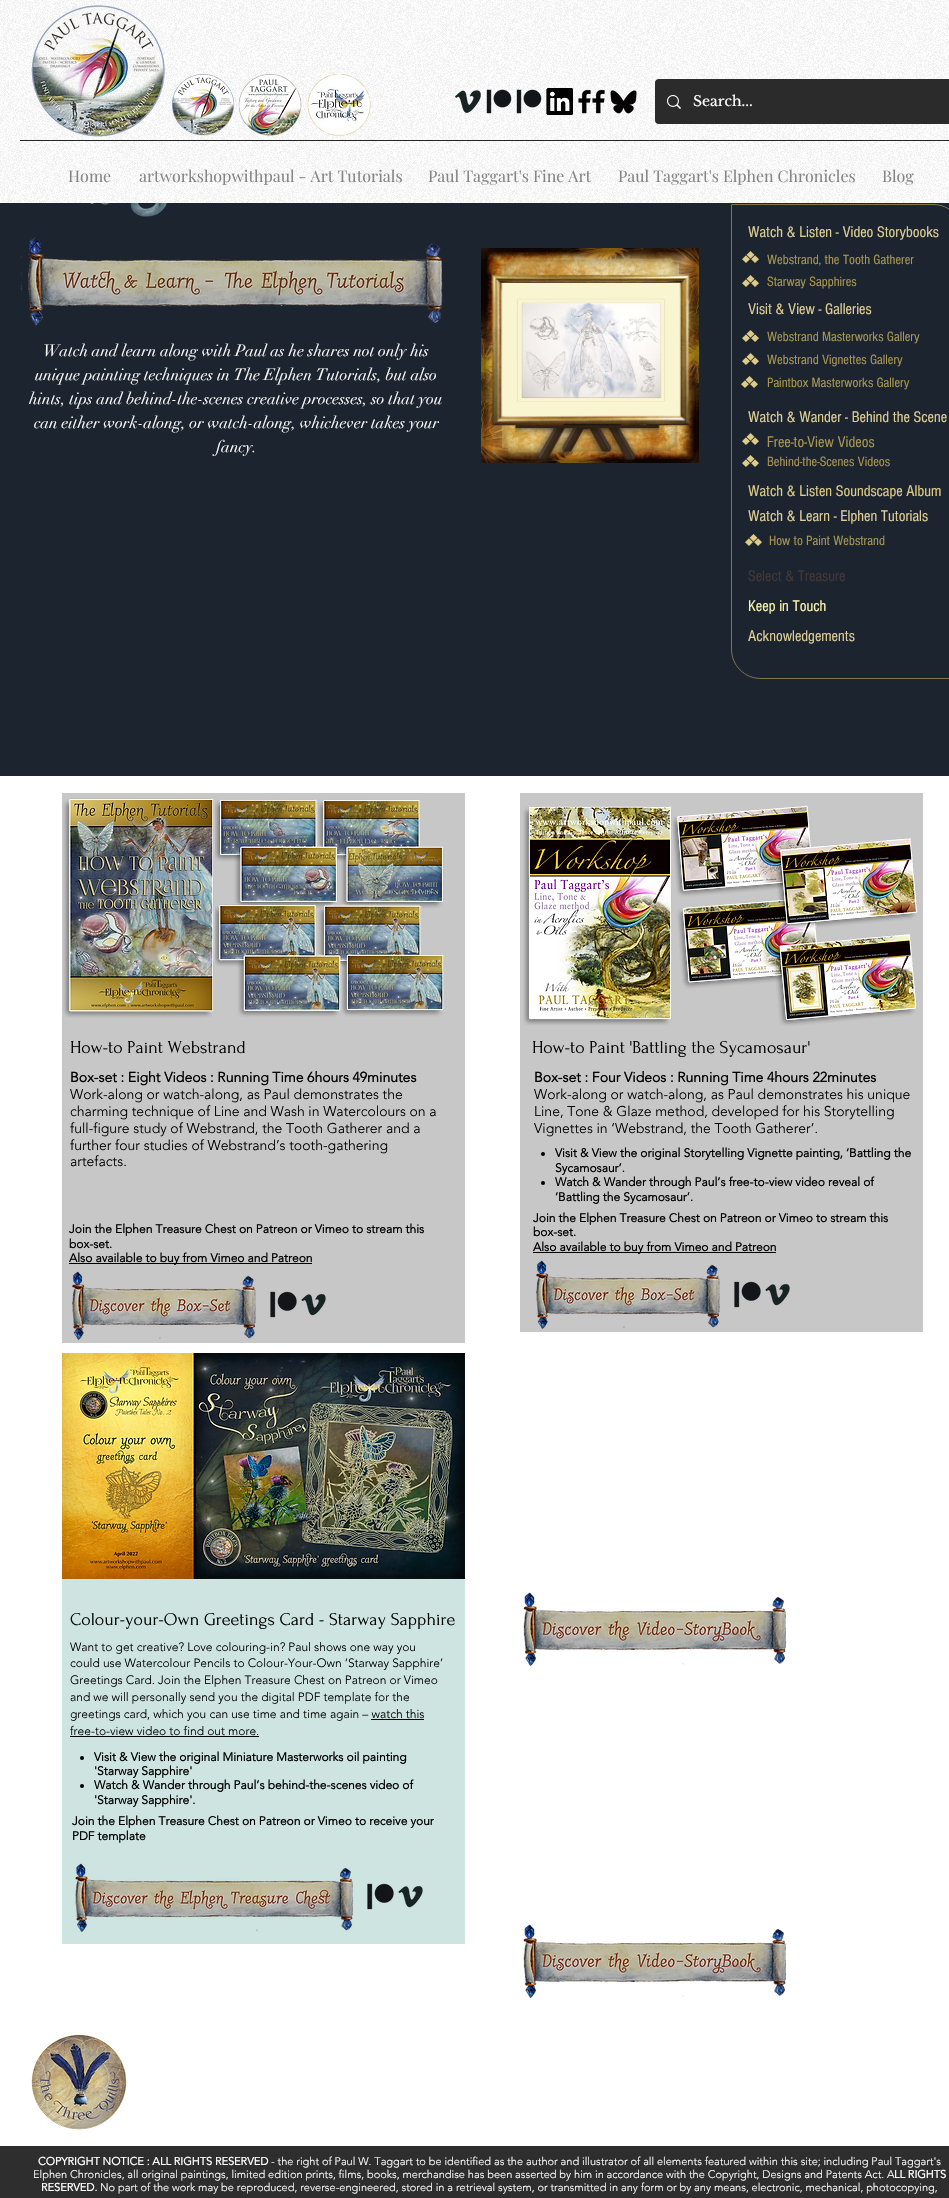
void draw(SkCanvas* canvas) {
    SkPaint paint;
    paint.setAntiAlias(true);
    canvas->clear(0xFFFFFFFF);
    canvas->drawImageRect(SkImages::DeferredFromEncodedData(SkData::MakeFromFileName("img1.png")), SkRect::MakeXYWH(0, 0, 949, 203), SkSamplingOptions());
    canvas->drawImageRect(SkImages::DeferredFromEncodedData(SkData::MakeFromFileName("img2.png")), SkRect::MakeXYWH(31, 5, 134, 132), SkSamplingOptions());
    canvas->drawImageRect(SkImages::DeferredFromEncodedData(SkData::MakeFromFileName("img3.png")), SkRect::MakeXYWH(171, 74, 64, 62), SkSamplingOptions());
    canvas->drawImageRect(SkImages::DeferredFromEncodedData(SkData::MakeFromFileName("img4.png")), SkRect::MakeXYWH(238, 74, 64, 62), SkSamplingOptions());
    canvas->drawImageRect(SkImages::DeferredFromEncodedData(SkData::MakeFromFileName("img5.png")), SkRect::MakeXYWH(307, 74, 64, 62), SkSamplingOptions());
    canvas->drawImageRect(SkImages::DeferredFromEncodedData(SkData::MakeFromFileName("img6.png")), SkRect::MakeXYWH(455, 90, 26, 23), SkSamplingOptions());
    canvas->drawImageRect(SkImages::DeferredFromEncodedData(SkData::MakeFromFileName("img7.png")), SkRect::MakeXYWH(486, 89, 26, 25), SkSamplingOptions());
    canvas->drawImageRect(SkImages::DeferredFromEncodedData(SkData::MakeFromFileName("img8.png")), SkRect::MakeXYWH(516, 89, 26, 25), SkSamplingOptions());
    canvas->drawImageRect(SkImages::DeferredFromEncodedData(SkData::MakeFromFileName("img9.png")), SkRect::MakeXYWH(546, 88, 27, 27), SkSamplingOptions());
    canvas->drawImageRect(SkImages::DeferredFromEncodedData(SkData::MakeFromFileName("img10.png")), SkRect::MakeXYWH(578, 89, 13, 25), SkSamplingOptions());
    canvas->drawImageRect(SkImages::DeferredFromEncodedData(SkData::MakeFromFileName("img11.png")), SkRect::MakeXYWH(592, 89, 13, 25), SkSamplingOptions());
    canvas->drawImageRect(SkImages::DeferredFromEncodedData(SkData::MakeFromFileName("img12.png")), SkRect::MakeXYWH(610, 90, 27, 24), SkSamplingOptions());
    paint.setColor(0xFF2B2B2B);
    canvas->drawRoundRect(SkRect::MakeXYWH(655, 79, 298, 45), 4, 4, paint);
    canvas->drawImageRect(SkImages::DeferredFromEncodedData(SkData::MakeFromFileName("img13.png")), SkRect::MakeXYWH(667, 95, 14, 14), SkSamplingOptions());
    SkFont font1(fontMgr->matchFamilyStyle("Libre Baskerville", SkFontStyle::Normal()), 14);
    font1.setSubpixel(true);
    paint.setColor(0xFFFFFFFF);
    canvas->drawString("Search...", 693, 106, font1, paint);
    paint.setColor(0xD9000000);
    canvas->drawRect(SkRect::MakeXYWH(20, 140, 929, 1), paint);
    SkFont font2(fontMgr->matchFamilyStyle("Playfair Display", SkFontStyle::Normal()), 16);
    font2.setSubpixel(true);
    paint.setColor(0xFF858585);
    canvas->drawString("Home", 68, 182, font2, paint);
    canvas->drawString("artworkshopwithpaul - Art Tutorials", 139, 182, font2, paint);
    canvas->drawString("Paul Taggart's Fine Art", 428, 182, font2, paint);
    canvas->drawString("Paul Taggart's Elphen Chronicles", 618, 182, font2, paint);
    canvas->drawString("Blog", 882, 182, font2, paint);
    paint.setColor(0xFF1C242F);
    canvas->drawRect(SkRect::MakeXYWH(0, 203, 949, 573), paint);
    canvas->drawImageRect(SkImages::DeferredFromEncodedData(SkData::MakeFromFileName("img14.png")), SkRect::MakeXYWH(90, 203, 77, 14), SkSamplingOptions());
    canvas->drawImageRect(SkImages::DeferredFromEncodedData(SkData::MakeFromFileName("img15.png")), SkRect::MakeXYWH(20, 237, 423, 89), SkSamplingOptions());
    canvas->drawImageRect(SkImages::DeferredFromEncodedData(SkData::MakeFromFileName("img16.png")), SkRect::MakeXYWH(481, 248, 218, 215), SkSamplingOptions());
    paint.setStyle(SkPaint::kStroke_Style);
    paint.setStrokeWidth(1);
    paint.setColor(0xFF817649);
    canvas->drawPath(SkPathBuilder().moveTo(731.5f, 204.5f).lineTo(933, 204.5f).cubicTo(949.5f, 204.5f, 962.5f, 217.5f, 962.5f, 234).lineTo(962.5f, 678.5f).lineTo(761, 678.5f).cubicTo(744.5f, 678.5f, 731.5f, 665.5f, 731.5f, 649).close().detach(), paint);
    canvas->drawImageRect(SkImages::DeferredFromEncodedData(SkData::MakeFromFileName("img17.png")), SkRect::MakeXYWH(742, 251, 17, 12), SkSamplingOptions());
    canvas->drawImageRect(SkImages::DeferredFromEncodedData(SkData::MakeFromFileName("img17.png")), SkRect::MakeXYWH(742, 275, 17, 12), SkSamplingOptions());
    canvas->drawImageRect(SkImages::DeferredFromEncodedData(SkData::MakeFromFileName("img17.png")), SkRect::MakeXYWH(742, 330, 17, 12), SkSamplingOptions());
    canvas->drawImageRect(SkImages::DeferredFromEncodedData(SkData::MakeFromFileName("img17.png")), SkRect::MakeXYWH(742, 353, 17, 12), SkSamplingOptions());
    canvas->drawImageRect(SkImages::DeferredFromEncodedData(SkData::MakeFromFileName("img17.png")), SkRect::MakeXYWH(741, 376, 17, 12), SkSamplingOptions());
    canvas->drawImageRect(SkImages::DeferredFromEncodedData(SkData::MakeFromFileName("img17.png")), SkRect::MakeXYWH(742, 433, 17, 12), SkSamplingOptions());
    canvas->drawImageRect(SkImages::DeferredFromEncodedData(SkData::MakeFromFileName("img17.png")), SkRect::MakeXYWH(742, 455, 17, 12), SkSamplingOptions());
    canvas->drawImageRect(SkImages::DeferredFromEncodedData(SkData::MakeFromFileName("img17.png")), SkRect::MakeXYWH(745, 534, 17, 12), SkSamplingOptions());
    SkFont font3(fontMgr->matchFamilyStyle("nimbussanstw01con", SkFontStyle::Normal()), 16);
    font3.setSubpixel(true);
    paint.setStyle(SkPaint::kFill_Style);
    paint.setColor(0xFFDECD96);
    canvas->drawString("Watch & Listen - Video Storybooks", 748, 237, font3, paint);
    SkFont font4(fontMgr->matchFamilyStyle("nimbussanstw01con", SkFontStyle::Normal()), 14);
    font4.setSubpixel(true);
    paint.setColor(0xFFA89653);
    canvas->drawString("Webstrand, the Tooth Gatherer", 767, 264, font4, paint);
    canvas->drawString("Starway Sapphires", 767, 286, font4, paint);
    paint.setColor(0xFFDECD96);
    canvas->drawString("Visit & View - Galleries", 748, 314, font3, paint);
    paint.setColor(0xFFA89653);
    canvas->drawString("Webstrand Masterworks Gallery", 767, 341, font4, paint);
    canvas->drawString("Webstrand Vignettes Gallery", 767, 364, font4, paint);
    canvas->drawString("Paintbox Masterworks Gallery", 767, 387, font4, paint);
    paint.setColor(0xFFDECD96);
    canvas->drawString("Watch & Wander - Behind the Scene", 748, 422, font3, paint);
    paint.setColor(0xFFA89653);
    canvas->drawString("Free-to-View Videos", 767, 447, font3, paint);
    canvas->drawString("Behind-the-Scenes Videos", 767, 466, font4, paint);
    paint.setColor(0xFFDDCB86);
    canvas->drawString("Watch & Listen Soundscape Album", 748, 496, font3, paint);
    paint.setColor(0xFFDECD96);
    canvas->drawString("Watch & Learn - Elphen Tutorials", 748, 521, font3, paint);
    paint.setColor(0xFFA89653);
    canvas->drawString("How to Paint Webstrand", 769, 545, font4, paint);
    paint.setColor(0xFF423737);
    canvas->drawString("Select & Treasure", 748, 581, font3, paint);
    paint.setColor(0xFFF8F4AC);
    canvas->drawString("Keep in Touch", 748, 611, font3, paint);
    paint.setColor(0xFFDECD96);
    canvas->drawString("Acknowledgements", 748, 641, font3, paint);
    SkFont font5(fontMgr->matchFamilyStyle("didot", SkFontStyle::Normal()), 16);
    font5.setSubpixel(true);
    paint.setColor(0xFFFFFFFF);
    canvas->drawString("Watch and learn along with Paul as he shares not only his", 43, 356, font5, paint);
    canvas->drawString("unique painting techniques in The Elphen Tutorials, but also", 35, 380, font5, paint);
    canvas->drawString("hints, tips and behind-the-scenes creative processes, so that you", 29, 404, font5, paint);
    canvas->drawString("can either work-along, or watch-along, whichever takes your", 34, 428, font5, paint);
    canvas->drawString("fancy.", 216, 452, font5, paint);
    paint.setColor(0xFFC7C7C7);
    canvas->drawRect(SkRect::MakeXYWH(62, 793, 403, 550), paint);
    canvas->drawImageRect(SkImages::DeferredFromEncodedData(SkData::MakeFromFileName("img18.png")), SkRect::MakeXYWH(63, 798, 381, 220), SkSamplingOptions());
    SkFont font6(fontMgr->matchFamilyStyle("Forum", SkFontStyle::Normal()), 18);
    font6.setSubpixel(true);
    paint.setColor(0xFF000000);
    canvas->drawString("How-to Paint Webstrand", 70, 1053, font6, paint);
    SkFont font7(fontMgr->matchFamilyStyle("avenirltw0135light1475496", SkFontStyle::Bold()), 14);
    font7.setSubpixel(true);
    canvas->drawString("Box-set : Eight Videos : Running Time 6hours 49minutes", 70, 1082, font7, paint);
    SkFont font8(fontMgr->matchFamilyStyle("avenirltw0135light1475496", SkFontStyle(300, SkFontStyle::kNormal_Width, SkFontStyle::kUpright_Slant)), 14);
    font8.setSubpixel(true);
    canvas->drawString("Work-along or watch-along, as Paul demonstrates the", 70, 1099, font8, paint);
    canvas->drawString("charming technique of Line and Wash in Watercolours on a", 70, 1116, font8, paint);
    canvas->drawString("full-figure study of Webstrand, the Tooth Gatherer and a", 70, 1133, font8, paint);
    canvas->drawString("further four studies of Webstrand’s tooth-gathering", 70, 1150, font8, paint);
    canvas->drawString("artefacts.", 70, 1166, font8, paint);
    SkFont font9(fontMgr->matchFamilyStyle("avenirltw0135light1475496", SkFontStyle::Bold()), 12);
    font9.setSubpixel(true);
    canvas->drawString("Join the Elphen Treasure Chest on Patreon or Vimeo to stream this", 69, 1233, font9, paint);
    canvas->drawString("box-set.", 69, 1248, font9, paint);
    canvas->drawRect(SkRect::MakeXYWH(69, 1263, 243, 1), paint);
    canvas->drawString("Also available to buy from Vimeo and Patreon", 69, 1262, font9, paint);
    canvas->drawImageRect(SkImages::DeferredFromEncodedData(SkData::MakeFromFileName("img19.png")), SkRect::MakeXYWH(72, 1271, 184, 69), SkSamplingOptions());
    canvas->drawImageRect(SkImages::DeferredFromEncodedData(SkData::MakeFromFileName("img20.png")), SkRect::MakeXYWH(270, 1291, 27, 27), SkSamplingOptions());
    canvas->drawImageRect(SkImages::DeferredFromEncodedData(SkData::MakeFromFileName("img21.png")), SkRect::MakeXYWH(301, 1293, 25, 23), SkSamplingOptions());
    paint.setColor(0xFFC7C7C7);
    canvas->drawRect(SkRect::MakeXYWH(520, 793, 403, 539), paint);
    canvas->drawImageRect(SkImages::DeferredFromEncodedData(SkData::MakeFromFileName("img22.png")), SkRect::MakeXYWH(523, 805, 395, 221), SkSamplingOptions());
    paint.setColor(0xFF000000);
    canvas->drawString("How-to Paint 'Battling the Sycamosaur'", 532, 1053, font6, paint);
    canvas->drawString("Box-set : Four Videos : Running Time 4hours 22minutes", 534, 1082, font7, paint);
    canvas->drawString("Work-along or watch-along, as Paul demonstrates his unique", 534, 1099, font8, paint);
    canvas->drawString("Line, Tone & Glaze method, developed for his Storytelling", 534, 1116, font8, paint);
    canvas->drawString("Vignettes in ‘Webstrand, the Tooth Gatherer’.", 534, 1133, font8, paint);
    canvas->drawCircle(543, 1154, 2, paint);
    canvas->drawString("Visit & View the original Storytelling Vignette painting, ‘Battling the", 555, 1157, font9, paint);
    canvas->drawString("Sycamosaur’.", 555, 1172, font9, paint);
    canvas->drawCircle(543, 1183, 2, paint);
    canvas->drawString("Watch & Wander through Paul’s free-to-view video reveal of", 555, 1186, font9, paint);
    canvas->drawString("‘Battling the Sycamosaur’.", 555, 1201, font9, paint);
    canvas->drawString("Join the Elphen Treasure Chest on Patreon or Vimeo to stream this", 533, 1222, font9, paint);
    canvas->drawString("box-set.", 533, 1236, font9, paint);
    canvas->drawRect(SkRect::MakeXYWH(533, 1252, 243, 1), paint);
    canvas->drawString("Also available to buy from Vimeo and Patreon", 533, 1251, font9, paint);
    canvas->drawImageRect(SkImages::DeferredFromEncodedData(SkData::MakeFromFileName("img19.png")), SkRect::MakeXYWH(536, 1260, 184, 69), SkSamplingOptions());
    canvas->drawImageRect(SkImages::DeferredFromEncodedData(SkData::MakeFromFileName("img20.png")), SkRect::MakeXYWH(734, 1281, 27, 27), SkSamplingOptions());
    canvas->drawImageRect(SkImages::DeferredFromEncodedData(SkData::MakeFromFileName("img21.png")), SkRect::MakeXYWH(765, 1283, 25, 23), SkSamplingOptions());
    paint.setColor(0xFFCDE4E1);
    canvas->drawRect(SkRect::MakeXYWH(62, 1363, 403, 581), paint);
    canvas->drawImageRect(SkImages::DeferredFromEncodedData(SkData::MakeFromFileName("img23.png")), SkRect::MakeXYWH(62, 1353, 403, 226), SkSamplingOptions());
    paint.setColor(0xFF000000);
    canvas->drawString("Colour-your-Own Greetings Card - Starway Sapphire", 70, 1625, font6, paint);
    SkFont font10(fontMgr->matchFamilyStyle("avenirltw0135light1475496", SkFontStyle(300, SkFontStyle::kNormal_Width, SkFontStyle::kUpright_Slant)), 12);
    font10.setSubpixel(true);
    canvas->drawString("Want to get creative? Love colouring-in? Paul shows one way you", 70, 1651, font10, paint);
    canvas->drawString("could use Watercolour Pencils to Colour-Your-Own ‘Starway Sapphire’", 70, 1667, font10, paint);
    canvas->drawString("Greetings Card. Join the Elphen Treasure Chest on Patreon or Vimeo", 70, 1684, font10, paint);
    canvas->drawString("and we will personally send you the digital PDF template for the", 70, 1701, font10, paint);
    canvas->drawString("greetings card, which you can use time and time again – watch this", 70, 1718, font10, paint);
    canvas->drawRect(SkRect::MakeXYWH(371, 1719, 53, 1), paint);
    canvas->drawString("free-to-view video to find out more.", 70, 1735, font10, paint);
    canvas->drawRect(SkRect::MakeXYWH(70, 1736, 189, 1), paint);
    canvas->drawCircle(82, 1758, 2, paint);
    canvas->drawString("Visit & View the original Miniature Masterworks oil painting", 94, 1761, font9, paint);
    canvas->drawString("'Starway Sapphire'", 94, 1775, font9, paint);
    canvas->drawCircle(82, 1786, 2, paint);
    canvas->drawString("Watch & Wander through Paul’s behind-the-scenes video of", 94, 1789, font9, paint);
    canvas->drawString("'Starway Sapphire'.", 94, 1804, font9, paint);
    canvas->drawString("Join the Elphen Treasure Chest on Patreon or Vimeo to receive your", 72, 1825, font9, paint);
    canvas->drawString("PDF template", 72, 1840, font9, paint);
    canvas->drawImageRect(SkImages::DeferredFromEncodedData(SkData::MakeFromFileName("img24.png")), SkRect::MakeXYWH(75, 1863, 278, 69), SkSamplingOptions());
    canvas->drawImageRect(SkImages::DeferredFromEncodedData(SkData::MakeFromFileName("img25.png")), SkRect::MakeXYWH(367, 1883, 27, 27), SkSamplingOptions());
    canvas->drawImageRect(SkImages::DeferredFromEncodedData(SkData::MakeFromFileName("img26.png")), SkRect::MakeXYWH(398, 1885, 25, 23), SkSamplingOptions());
    canvas->drawImageRect(SkImages::DeferredFromEncodedData(SkData::MakeFromFileName("img27.png")), SkRect::MakeXYWH(523, 1592, 264, 74), SkSamplingOptions());
    canvas->drawImageRect(SkImages::DeferredFromEncodedData(SkData::MakeFromFileName("img27.png")), SkRect::MakeXYWH(523, 1924, 264, 74), SkSamplingOptions());
    canvas->drawImageRect(SkImages::DeferredFromEncodedData(SkData::MakeFromFileName("img28.png")), SkRect::MakeXYWH(31, 2034, 96, 96), SkSamplingOptions());
    paint.setColor(0xFF2F2E2E);
    canvas->drawRect(SkRect::MakeXYWH(0, 2146, 949, 52), paint);
    SkFont font11(fontMgr->matchFamilyStyle("avenirltw0135light1475496", SkFontStyle::Bold()), 11);
    font11.setSubpixel(true);
    paint.setColor(0xFFFFFFFF);
    canvas->drawString("COPYRIGHT NOTICE : ALL RIGHTS RESERVED", 38, 2165, font11, paint);
    SkFont font12(fontMgr->matchFamilyStyle("avenirltw0135light1475496", SkFontStyle(300, SkFontStyle::kNormal_Width, SkFontStyle::kUpright_Slant)), 11);
    font12.setSubpixel(true);
    canvas->drawString("- the right of Paul W. Taggart to be identified as the author and illustrator of all elements featured within this site; including Paul Taggart's", 271, 2165, font12, paint);
    canvas->drawString("Elphen Chronicles, all original paintings, limited edition prints, films, books, merchandise has been asserted by him in accordance with the Copyright, Designs and Patents Act. A", 33, 2178, font12, paint);
    canvas->drawString("LL RIGHTS", 894, 2178, font11, paint);
    canvas->drawString("RESERVED.", 41, 2191, font11, paint);
    canvas->drawString("No part of the work may be reproduced, reverse-engineered, stored in a retrieval system, or transmitted in any form or by any means, electronic, mechanical, photocopying,", 100, 2191, font12, paint);
}
